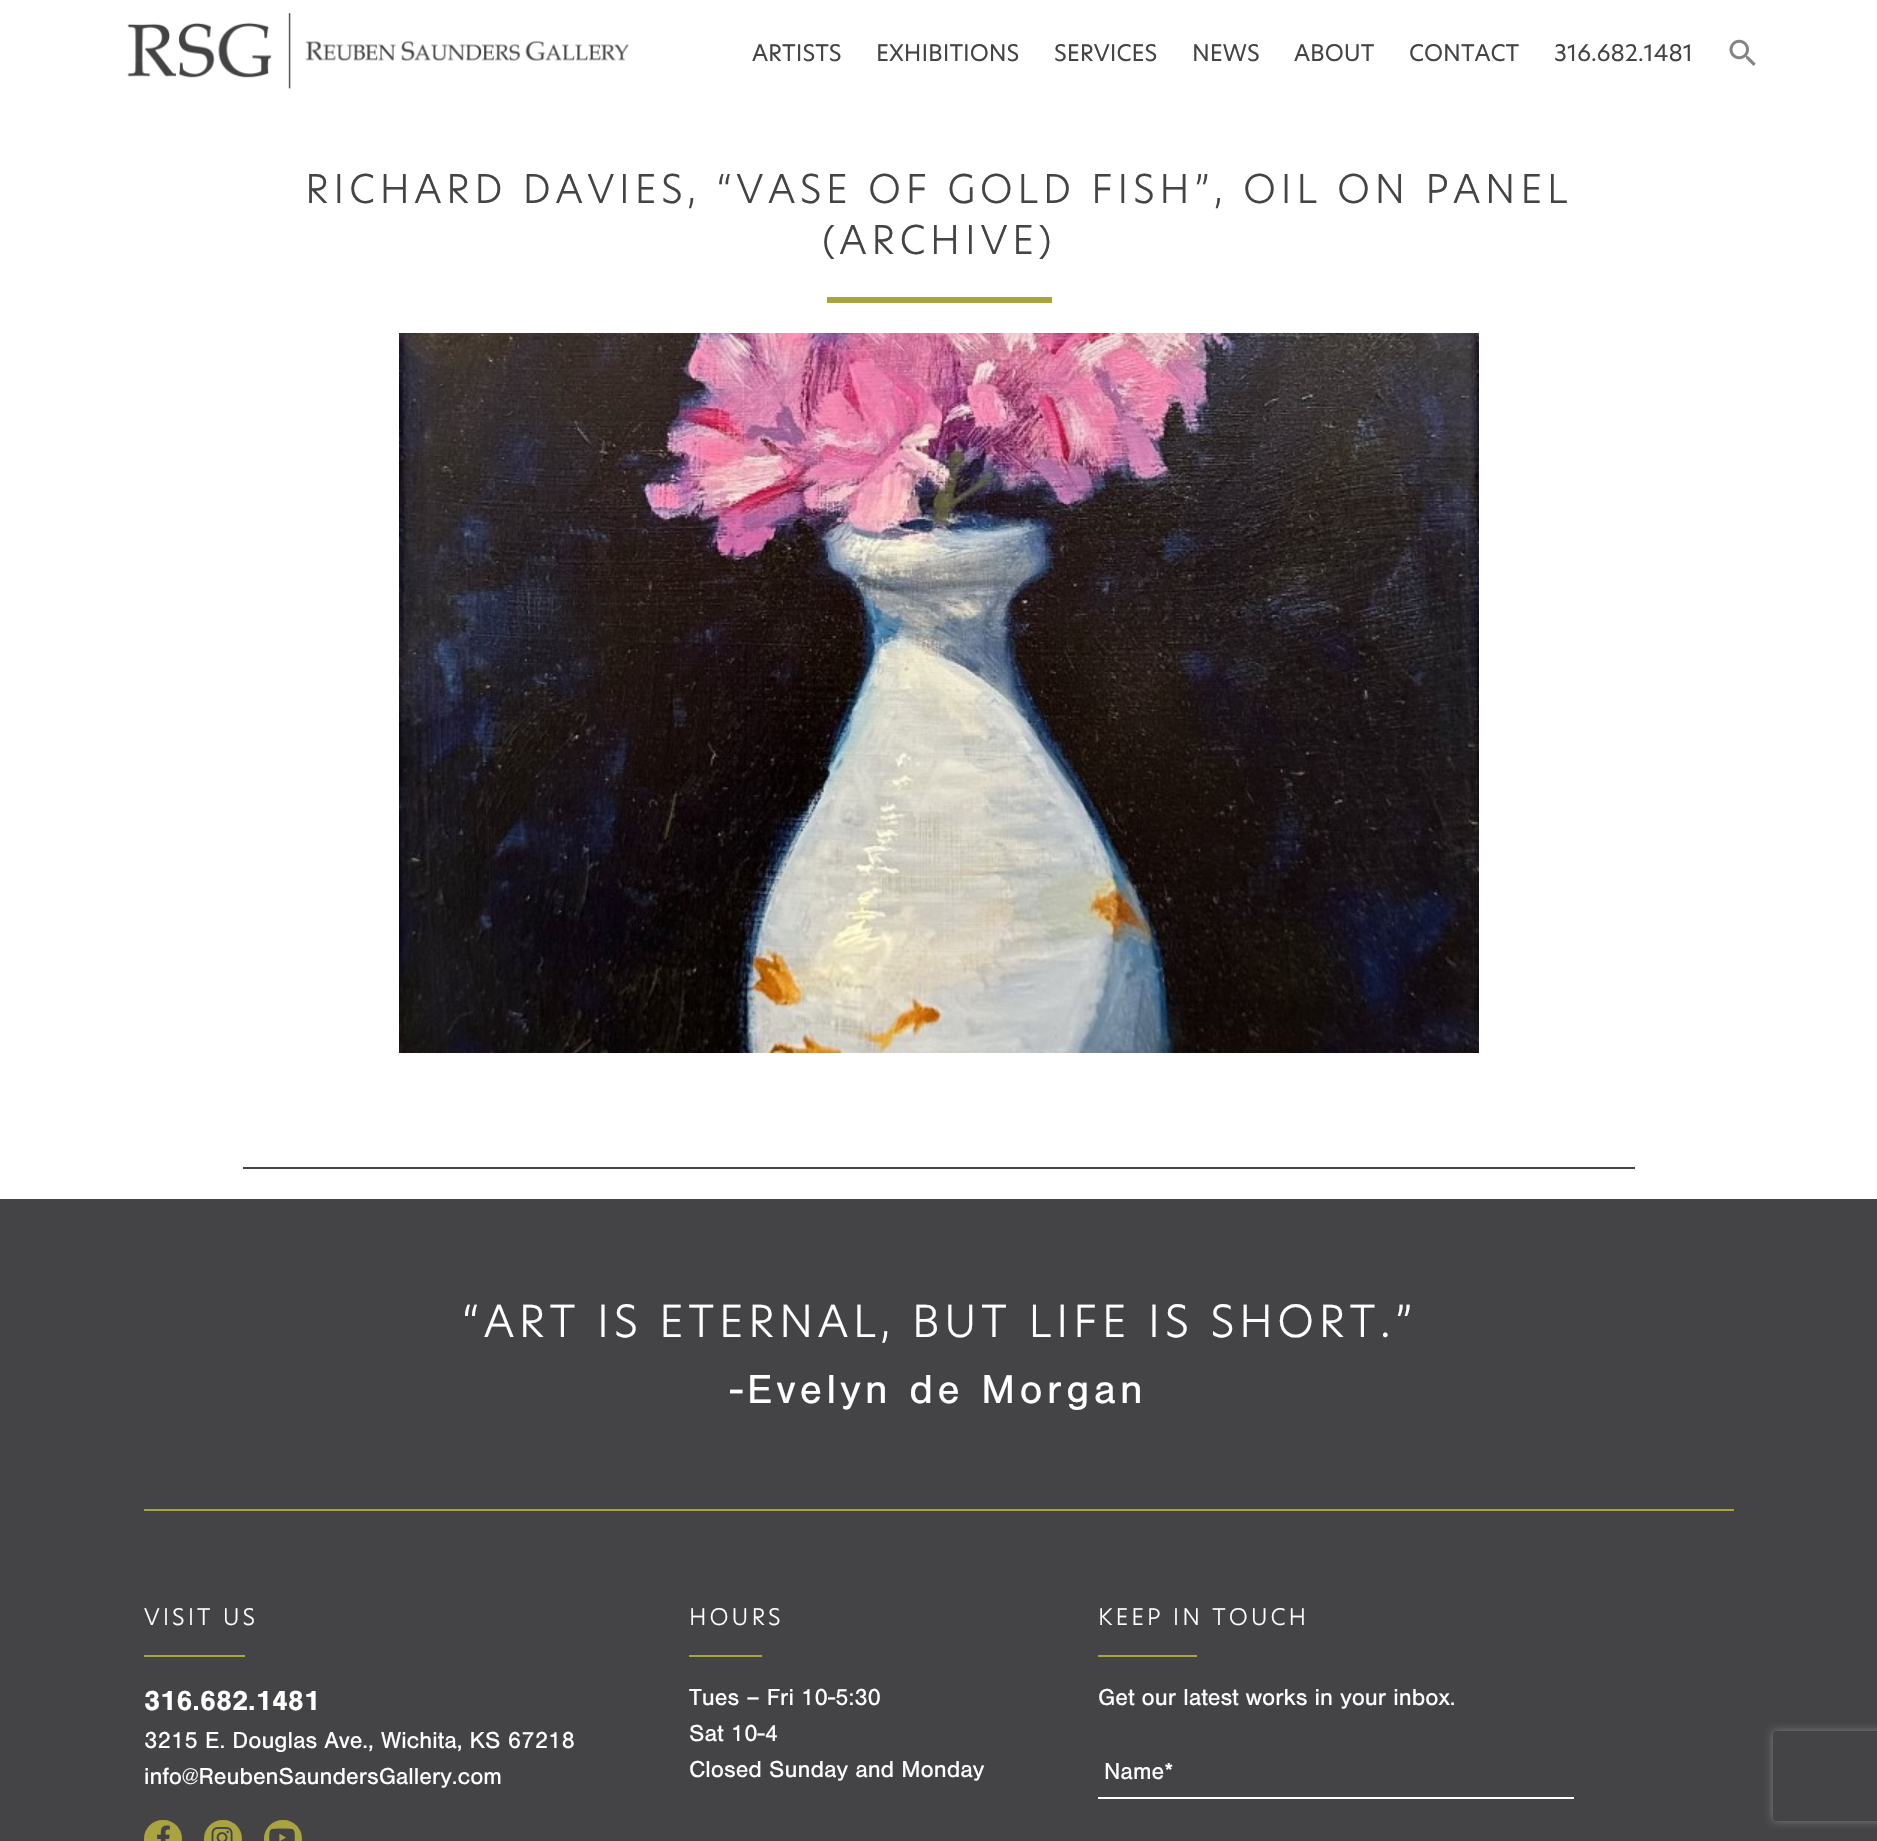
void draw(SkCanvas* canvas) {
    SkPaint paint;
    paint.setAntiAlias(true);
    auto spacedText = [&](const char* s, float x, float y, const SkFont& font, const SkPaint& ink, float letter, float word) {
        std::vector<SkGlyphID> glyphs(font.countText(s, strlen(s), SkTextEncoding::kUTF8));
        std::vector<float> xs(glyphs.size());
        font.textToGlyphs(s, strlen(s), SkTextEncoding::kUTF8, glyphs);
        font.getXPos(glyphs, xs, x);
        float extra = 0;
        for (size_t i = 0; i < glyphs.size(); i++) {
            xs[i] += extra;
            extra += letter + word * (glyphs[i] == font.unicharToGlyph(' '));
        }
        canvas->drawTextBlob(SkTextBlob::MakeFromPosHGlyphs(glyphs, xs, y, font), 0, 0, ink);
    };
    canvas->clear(0xFFFFFFFF);
    canvas->drawImageRect(SkImages::DeferredFromEncodedData(SkData::MakeFromFileName("img1.png")), SkRect::MakeXYWH(127, 13, 502, 76), SkSamplingOptions());
    SkFont font1(fontMgr->matchFamilyStyle("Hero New", SkFontStyle::Normal()), 22.5f);
    font1.setSubpixel(true);
    paint.setColor(0xFF444345);
    canvas->drawString("ARTISTS", 752, 61, font1, paint);
    canvas->drawString("EXHIBITIONS", 876, 61, font1, paint);
    canvas->drawString("SERVICES", 1054, 61, font1, paint);
    canvas->drawString("NEWS", 1192, 61, font1, paint);
    canvas->drawString("ABOUT", 1294, 61, font1, paint);
    canvas->drawString("CONTACT", 1409, 61, font1, paint);
    canvas->drawString("316.682.1481", 1554, 61, font1, paint);
    canvas->drawImageRect(SkImages::DeferredFromEncodedData(SkData::MakeFromFileName("img2.png")), SkRect::MakeXYWH(1729, 39, 27, 27), SkSamplingOptions());
    SkFont font2(fontMgr->matchFamilyStyle("Hero New", SkFontStyle(300, SkFontStyle::kNormal_Width, SkFontStyle::kUpright_Slant)), 39);
    font2.setSubpixel(true);
    spacedText("RICHARD DAVIES, “VASE OF GOLD FISH”, OIL ON PANEL", 305, 203, font2, paint, 4.5f, 0);
    spacedText("(ARCHIVE)", 822, 254, font2, paint, 4.5f, 0);
    paint.setColor(0xFFA9A340);
    canvas->drawRect(SkRect::MakeXYWH(827, 297, 225, 6), paint);
    canvas->drawImageRect(SkImages::DeferredFromEncodedData(SkData::MakeFromFileName("img3.png")), SkRect::MakeXYWH(399, 333, 1080, 720), SkSamplingOptions());
    paint.setColor(0xFF444345);
    canvas->drawRect(SkRect::MakeXYWH(243, 1167, 1392, 2), paint);
    canvas->drawRect(SkRect::MakeXYWH(0, 1199, 1877, 642), paint);
    SkFont font3(fontMgr->matchFamilyStyle("Hero New", SkFontStyle(300, SkFontStyle::kNormal_Width, SkFontStyle::kUpright_Slant)), 43.5f);
    font3.setSubpixel(true);
    paint.setColor(0xFFFFFFFF);
    spacedText("“ART IS ETERNAL, BUT LIFE IS SHORT.”", 462, 1337, font3, paint, 4.5f, 0);
    SkFont font4(fontMgr->matchFamilyStyle("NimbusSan", SkFontStyle::Normal()), 42);
    font4.setSubpixel(true);
    spacedText("-Evelyn de Morgan", 730, 1403, font4, paint, 4.5f, 0);
    paint.setColor(0xFFA9A340);
    canvas->drawRect(SkRect::MakeXYWH(144, 1509, 1590, 2), paint);
    SkFont font5(fontMgr->matchFamilyStyle("Hero New", SkFontStyle(300, SkFontStyle::kNormal_Width, SkFontStyle::kUpright_Slant)), 22.5f);
    font5.setSubpixel(true);
    paint.setColor(0xFFFFFFFF);
    spacedText("VISIT US", 144, 1625, font5, paint, 3, 0);
    paint.setColor(0xFFA9A340);
    canvas->drawRect(SkRect::MakeXYWH(144, 1655, 101, 2), paint);
    SkFont font6(fontMgr->matchFamilyStyle("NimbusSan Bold", SkFontStyle::Bold()), 28.75f);
    font6.setSubpixel(true);
    paint.setColor(0xFFFFFFFF);
    canvas->drawString("316.682.1481", 144, 1710, font6, paint);
    SkFont font7(fontMgr->matchFamilyStyle("NimbusSan", SkFontStyle::Normal()), 24);
    font7.setSubpixel(true);
    canvas->drawString("3215 E. Douglas Ave., Wichita, KS 67218", 144, 1748, font7, paint);
    canvas->drawString("info@ReubenSaundersGallery.com", 144, 1784, font7, paint);
    paint.setColor(0xFFA9A340);
    canvas->drawRoundRect(SkRect::MakeXYWH(144, 1820, 38, 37), 18.5f, 18.5f, paint);
    canvas->drawImageRect(SkImages::DeferredFromEncodedData(SkData::MakeFromFileName("img4.png")), SkRect::MakeXYWH(157, 1825, 13, 16), SkSamplingOptions());
    canvas->drawRoundRect(SkRect::MakeXYWH(204, 1820, 38, 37), 18.5f, 18.5f, paint);
    canvas->drawImageRect(SkImages::DeferredFromEncodedData(SkData::MakeFromFileName("img5.png")), SkRect::MakeXYWH(211, 1827, 22, 14), SkSamplingOptions());
    canvas->drawRoundRect(SkRect::MakeXYWH(264, 1820, 38, 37), 18.5f, 18.5f, paint);
    canvas->drawImageRect(SkImages::DeferredFromEncodedData(SkData::MakeFromFileName("img6.png")), SkRect::MakeXYWH(269, 1828, 26, 13), SkSamplingOptions());
    paint.setColor(0xFFFFFFFF);
    spacedText("HOURS", 689, 1625, font5, paint, 3, 0);
    paint.setColor(0xFFA9A340);
    canvas->drawRect(SkRect::MakeXYWH(689, 1655, 73, 2), paint);
    paint.setColor(0xFFFFFFFF);
    canvas->drawString("Tues – Fri 10-5:30", 689, 1705, font7, paint);
    canvas->drawString("Sat 10-4", 689, 1741, font7, paint);
    canvas->drawString("Closed Sunday and Monday", 689, 1777, font7, paint);
    spacedText("KEEP IN TOUCH", 1098, 1625, font5, paint, 3, 0);
    paint.setColor(0xFFA9A340);
    canvas->drawRect(SkRect::MakeXYWH(1098, 1655, 99, 2), paint);
    paint.setColor(0xFFFFFFFF);
    canvas->drawString("Get our latest works in your inbox.", 1098, 1705, font7, paint);
    canvas->drawRect(SkRect::MakeXYWH(1098, 1797, 476, 2), paint);
    canvas->drawString("Name*", 1104, 1779, font7, paint);
    canvas->save();
    canvas->clipPath(SkPathBuilder(SkPathFillType::kEvenOdd).moveTo(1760, 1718).lineTo(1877, 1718).lineTo(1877, 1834).lineTo(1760, 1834).close().moveTo(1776, 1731).lineTo(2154, 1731).cubicTo(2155.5f, 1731, 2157, 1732.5f, 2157, 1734).lineTo(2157, 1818).cubicTo(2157, 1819.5f, 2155.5f, 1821, 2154, 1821).lineTo(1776, 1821).cubicTo(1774.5f, 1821, 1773, 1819.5f, 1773, 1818).lineTo(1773, 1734).cubicTo(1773, 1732.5f, 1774.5f, 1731, 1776, 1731).close().detach(), true);
    paint.setColor(0xFF808080);
    paint.setMaskFilter(SkMaskFilter::MakeBlur(kNormal_SkBlurStyle, 4));
    canvas->drawRoundRect(SkRect::MakeXYWH(1773, 1731, 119, 90), 3, 3, paint);
    paint.setMaskFilter(nullptr);
    canvas->restore();
}
